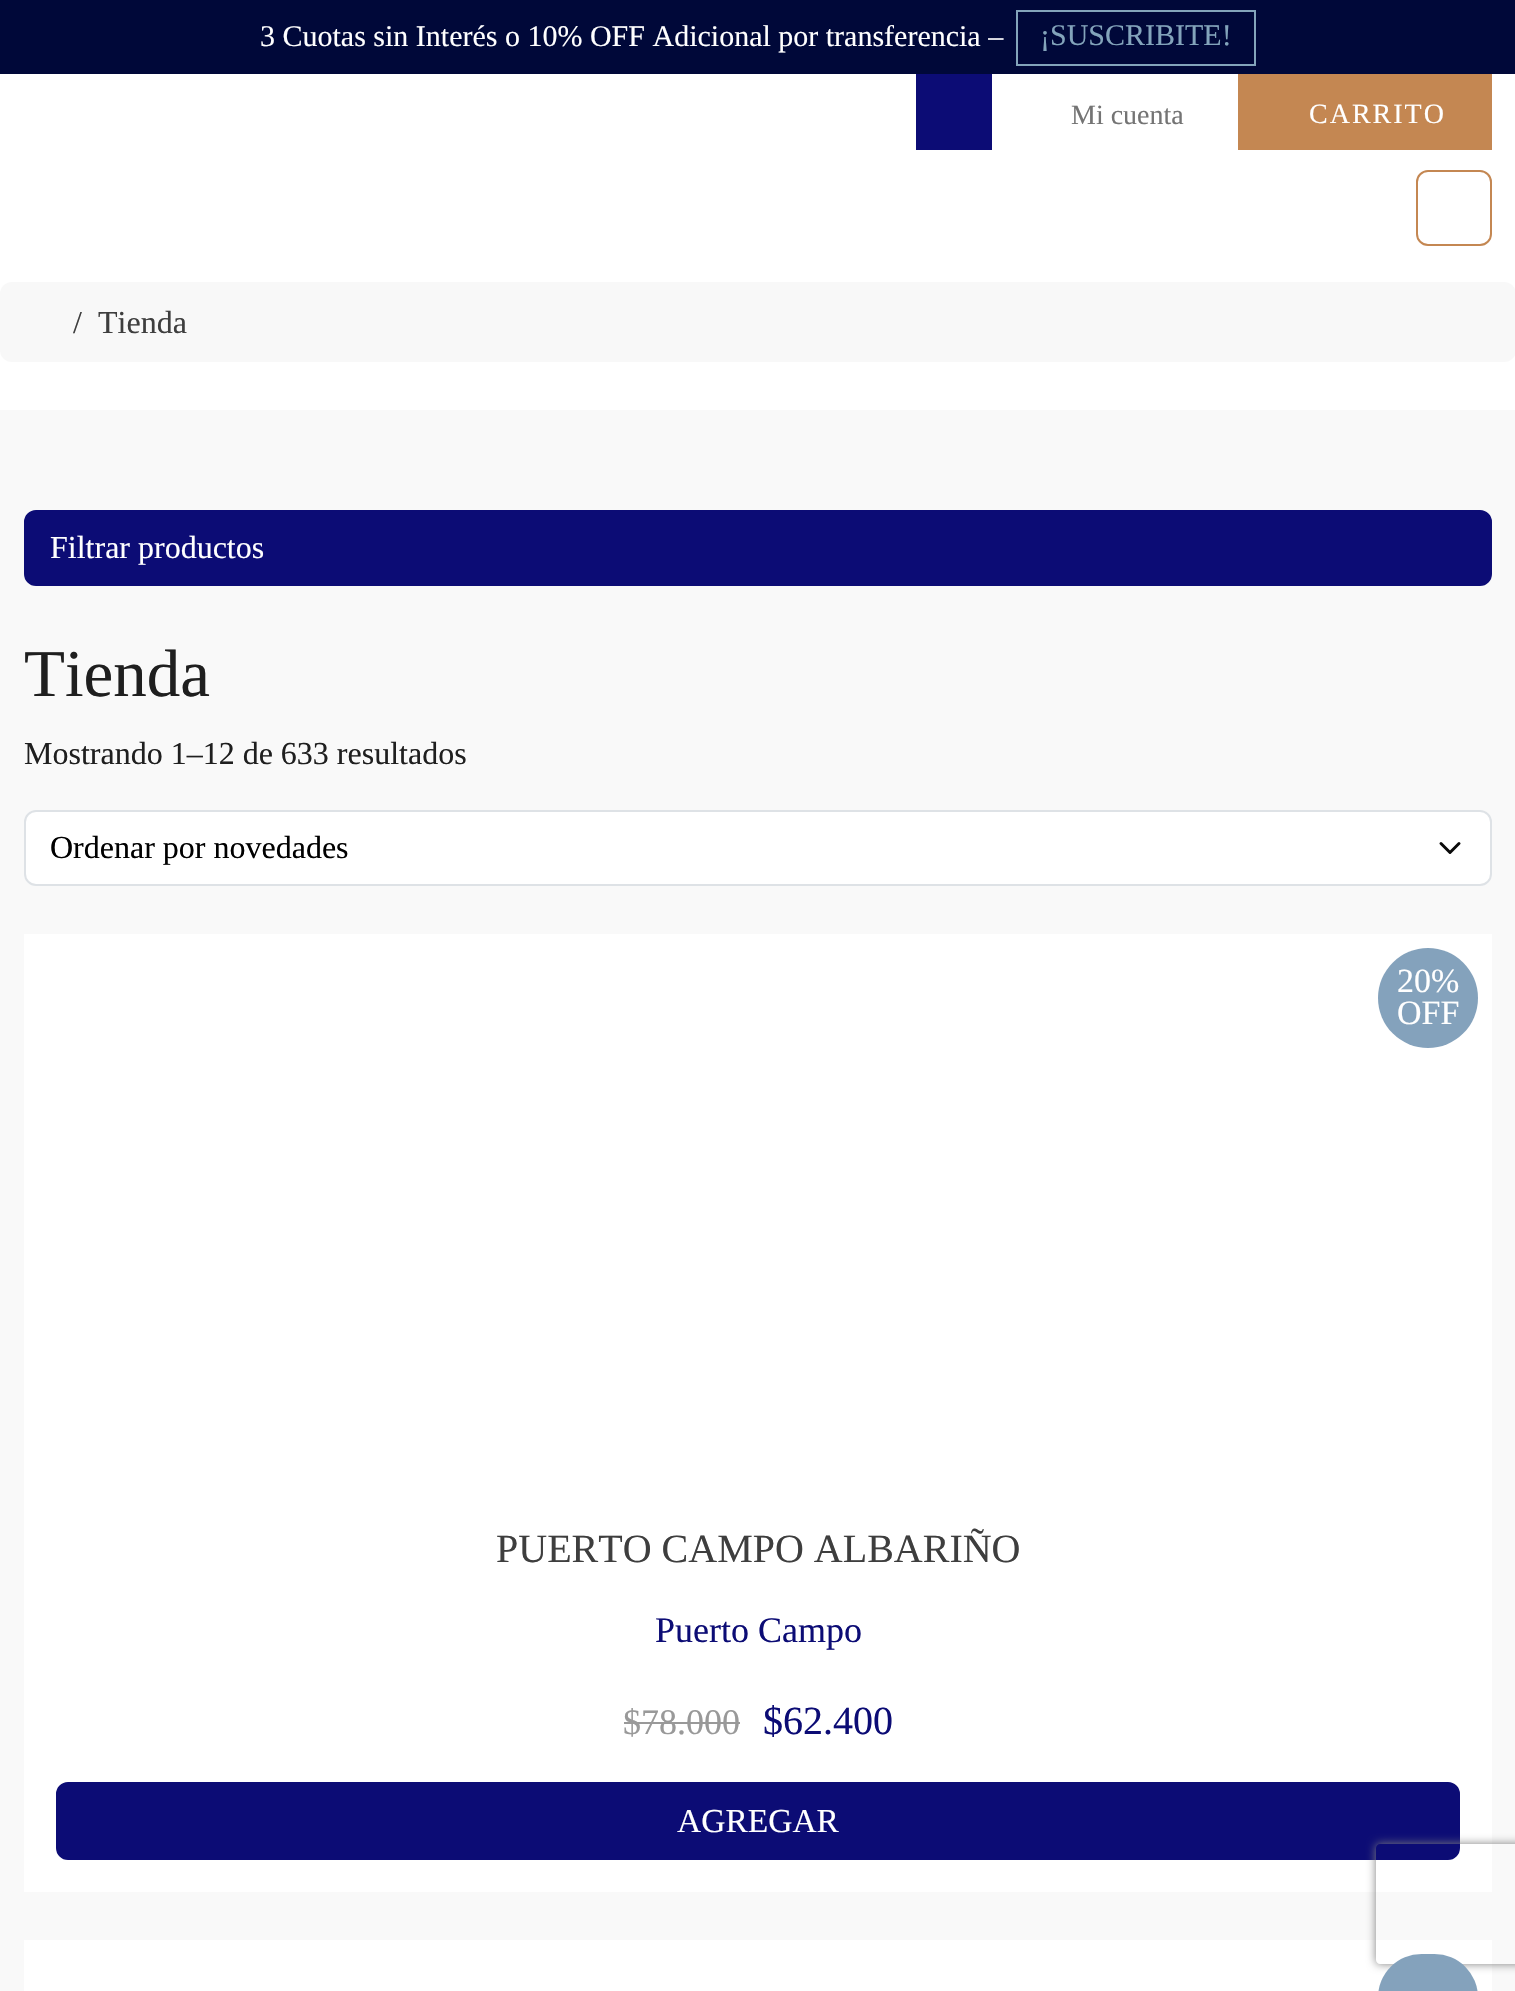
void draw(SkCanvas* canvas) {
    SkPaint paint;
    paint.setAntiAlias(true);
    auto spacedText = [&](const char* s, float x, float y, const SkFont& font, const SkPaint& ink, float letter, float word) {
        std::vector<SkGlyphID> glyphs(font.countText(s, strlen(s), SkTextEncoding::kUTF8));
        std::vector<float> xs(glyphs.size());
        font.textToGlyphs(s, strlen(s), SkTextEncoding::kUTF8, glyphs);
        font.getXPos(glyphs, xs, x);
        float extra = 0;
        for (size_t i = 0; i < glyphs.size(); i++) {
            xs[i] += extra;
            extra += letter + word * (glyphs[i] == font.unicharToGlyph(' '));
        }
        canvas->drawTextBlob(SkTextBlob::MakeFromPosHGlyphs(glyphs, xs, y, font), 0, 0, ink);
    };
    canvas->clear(0xFFFFFFFF);
    paint.setColor(0xFF000839);
    canvas->drawRect(SkRect::MakeXYWH(0, 0, 1515, 74), paint);
    SkFont font1(fontMgr->matchFamilyStyle("Liberation Serif", SkFontStyle::Normal()), 30);
    font1.setSubpixel(true);
    paint.setColor(0xFFFFFFFF);
    canvas->drawString("3 Cuotas sin Interés o 10% OFF Adicional por transferencia –", 260, 46, font1, paint);
    paint.setStyle(SkPaint::kStroke_Style);
    paint.setStrokeWidth(2);
    paint.setColor(0xFF83A4BB);
    canvas->drawRect(SkRect::MakeXYWH(1017, 11, 238, 54), paint);
    paint.setStyle(SkPaint::kFill_Style);
    canvas->drawString("¡SUSCRIBITE!", 1040, 45, font1, paint);
    paint.setColor(0xFF0C0C75);
    canvas->drawRect(SkRect::MakeXYWH(916, 74, 76, 76), paint);
    SkFont font2(fontMgr->matchFamilyStyle("Liberation Serif", SkFontStyle::Normal()), 28);
    font2.setSubpixel(true);
    paint.setColor(0xFF747474);
    canvas->drawString("Mi cuenta", 1071, 124, font2, paint);
    paint.setColor(0xFFC48752);
    canvas->drawRect(SkRect::MakeXYWH(1238, 74, 254, 76), paint);
    paint.setColor(0xFFFFFFFF);
    spacedText("CARRITO", 1309, 123, font2, paint, 2, 0);
    paint.setStyle(SkPaint::kStroke_Style);
    paint.setColor(0xFFC48752);
    canvas->drawRoundRect(SkRect::MakeXYWH(1417, 171, 74, 74), 11, 11, paint);
    paint.setStyle(SkPaint::kFill_Style);
    paint.setColor(0xFFF8F8F8);
    canvas->drawRoundRect(SkRect::MakeXYWH(0, 282, 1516, 80), 12, 12, paint);
    SkFont font3(fontMgr->matchFamilyStyle("Liberation Serif", SkFontStyle::Normal()), 32);
    font3.setSubpixel(true);
    paint.setColor(0xFF3E3E3E);
    canvas->drawString("/", 73, 333, font3, paint);
    canvas->drawString("Tienda", 98, 333, font3, paint);
    paint.setColor(0xFFF9F9F9);
    canvas->drawRect(SkRect::MakeXYWH(0, 410, 1515, 1581), paint);
    paint.setColor(0xFF0C0C75);
    canvas->drawRoundRect(SkRect::MakeXYWH(25, 511, 1466, 74), 11, 11, paint);
    paint.setStyle(SkPaint::kStroke_Style);
    canvas->drawRoundRect(SkRect::MakeXYWH(25, 511, 1466, 74), 11, 11, paint);
    paint.setStyle(SkPaint::kFill_Style);
    paint.setColor(0xFFFFFFFF);
    canvas->drawString("Filtrar productos", 50, 558, font3, paint);
    SkFont font4(fontMgr->matchFamilyStyle("Liberation Serif", SkFontStyle::Normal()), 67);
    font4.setSubpixel(true);
    paint.setColor(0xFF1F1F1F);
    canvas->drawString("Tienda", 24, 696, font4, paint);
    canvas->drawString("Mostrando 1–12 de 633 resultados", 24, 764, font3, paint);
    paint.setColor(0xFFFFFFFF);
    canvas->drawRoundRect(SkRect::MakeXYWH(24, 810, 1468, 76), 12, 12, paint);
    paint.setStyle(SkPaint::kStroke_Style);
    paint.setStrokeWidth(3);
    paint.setStrokeCap(SkPaint::kRound_Cap);
    paint.setStrokeJoin(SkPaint::kRound_Join);
    paint.setColor(0xFF0A0A0A);
    canvas->drawPath(SkPathBuilder().moveTo(1441, 843.5f).lineTo(1450, 852.5f).lineTo(1459, 843.5f).detach(), paint);
    paint.setStrokeWidth(2);
    paint.setStrokeCap(SkPaint::kButt_Cap);
    paint.setStrokeJoin(SkPaint::kMiter_Join);
    paint.setColor(0xFFDEE2E6);
    canvas->drawRoundRect(SkRect::MakeXYWH(25, 811, 1466, 74), 11, 11, paint);
    paint.setStyle(SkPaint::kFill_Style);
    paint.setColor(0xFF000000);
    canvas->drawString("Ordenar por novedades", 50, 858, font3, paint);
    paint.setColor(0xFFFFFFFF);
    canvas->drawRect(SkRect::MakeXYWH(24, 934, 1468, 958), paint);
    paint.setColor(0xFF84A2BC);
    canvas->drawCircle(1428, 998, 50, paint);
    SkFont font5(fontMgr->matchFamilyStyle("Liberation Serif", SkFontStyle::Normal()), 34);
    font5.setSubpixel(true);
    paint.setColor(0xFFFFFFFF);
    canvas->drawString("20%", 1397, 992, font5, paint);
    canvas->drawString("OFF", 1397, 1024, font5, paint);
    SkFont font6(fontMgr->matchFamilyStyle("Liberation Serif", SkFontStyle::Normal()), 40);
    font6.setSubpixel(true);
    paint.setColor(0xFF3E3E3E);
    canvas->drawString("PUERTO CAMPO ALBARIÑO", 496, 1562, font6, paint);
    SkFont font7(fontMgr->matchFamilyStyle("Liberation Serif", SkFontStyle::Normal()), 36);
    font7.setSubpixel(true);
    paint.setColor(0xFF0C0C75);
    canvas->drawString("Puerto Campo", 655, 1642, font7, paint);
    paint.setColor(0xFF999999);
    canvas->drawString("$78.000", 623, 1734, font7, paint);
    canvas->drawRect(SkRect::MakeXYWH(624, 1722, 116, 2), paint);
    paint.setColor(0xFF0C0C75);
    canvas->drawString("$62.400", 763, 1734, font6, paint);
    canvas->drawRoundRect(SkRect::MakeXYWH(57, 1783, 1402, 76), 11, 11, paint);
    paint.setStyle(SkPaint::kStroke_Style);
    canvas->drawRoundRect(SkRect::MakeXYWH(57, 1783, 1402, 76), 11, 11, paint);
    SkFont font8(fontMgr->matchFamilyStyle("Liberation Serif", SkFontStyle::Normal()), 33.5f);
    font8.setSubpixel(true);
    paint.setStyle(SkPaint::kFill_Style);
    paint.setColor(0xFFFFFFFF);
    canvas->drawString("AGREGAR", 677, 1832, font8, paint);
    canvas->drawRect(SkRect::MakeXYWH(24, 1940, 1468, 51), paint);
    canvas->save();
    canvas->clipPath(SkPathBuilder(SkPathFillType::kEvenOdd).moveTo(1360, 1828).lineTo(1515, 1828).lineTo(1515, 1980).lineTo(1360, 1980).close().moveTo(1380, 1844).lineTo(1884, 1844).cubicTo(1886, 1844, 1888, 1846, 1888, 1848).lineTo(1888, 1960).cubicTo(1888, 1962, 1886, 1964, 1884, 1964).lineTo(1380, 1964).cubicTo(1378, 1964, 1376, 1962, 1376, 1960).lineTo(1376, 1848).cubicTo(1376, 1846, 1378, 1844, 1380, 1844).close().detach(), true);
    paint.setColor(0xFF808080);
    paint.setMaskFilter(SkMaskFilter::MakeBlur(kNormal_SkBlurStyle, 5));
    canvas->drawRoundRect(SkRect::MakeXYWH(1376, 1844, 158, 120), 4, 4, paint);
    paint.setMaskFilter(nullptr);
    canvas->restore();
    paint.setColor(0xFF84A2BC);
    canvas->drawRoundRect(SkRect::MakeXYWH(1378, 1954, 100, 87), 50, 50, paint);
}
